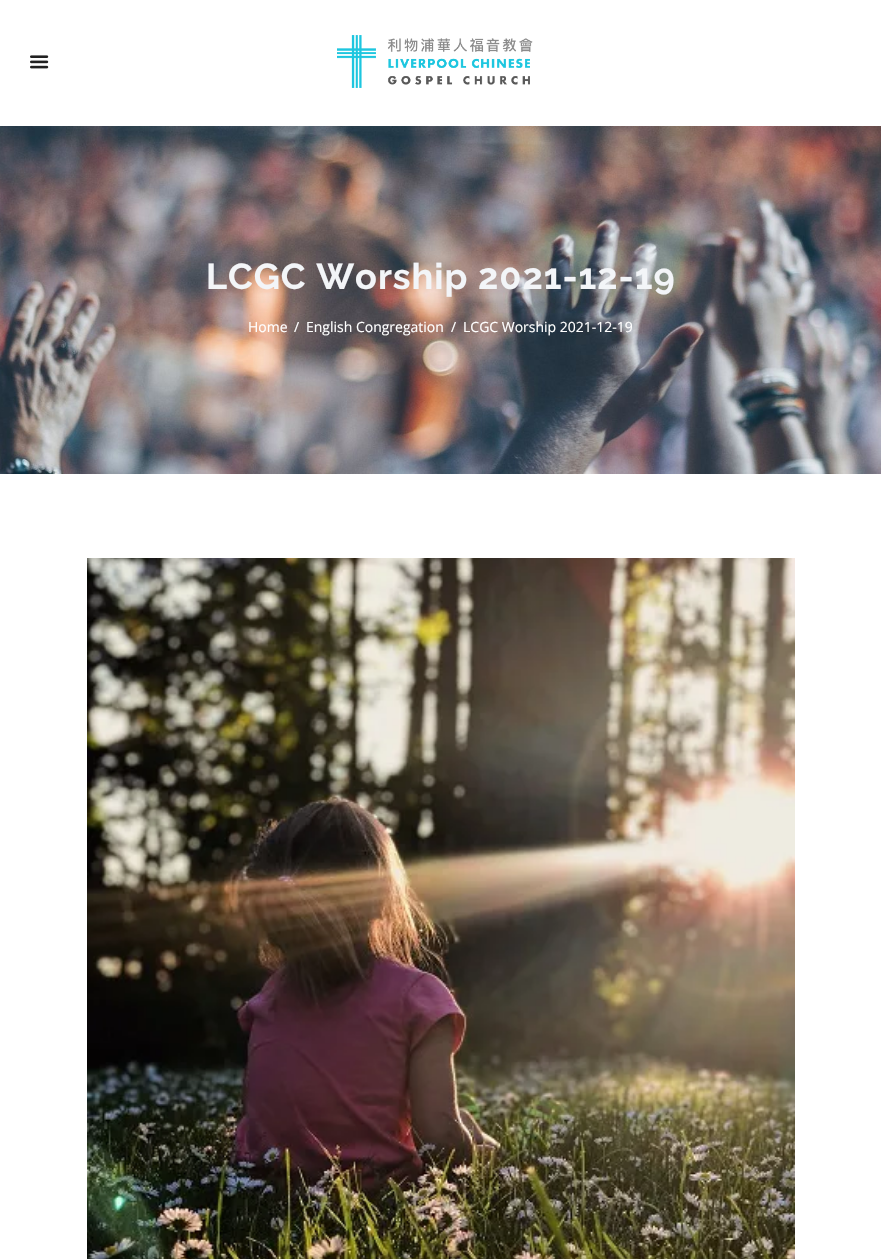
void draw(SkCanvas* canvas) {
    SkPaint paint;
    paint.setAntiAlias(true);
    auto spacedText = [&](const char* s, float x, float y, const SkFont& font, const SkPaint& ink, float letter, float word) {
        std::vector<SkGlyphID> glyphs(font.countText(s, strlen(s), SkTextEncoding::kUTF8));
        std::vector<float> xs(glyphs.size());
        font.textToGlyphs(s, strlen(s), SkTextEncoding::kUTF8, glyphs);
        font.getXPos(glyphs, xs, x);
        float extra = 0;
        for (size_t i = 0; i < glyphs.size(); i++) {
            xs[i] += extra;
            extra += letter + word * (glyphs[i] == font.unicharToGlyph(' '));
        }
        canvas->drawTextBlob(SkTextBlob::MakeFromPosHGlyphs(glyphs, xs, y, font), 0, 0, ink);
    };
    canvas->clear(0xFFFFFFFF);
    canvas->drawImageRect(SkImages::DeferredFromEncodedData(SkData::MakeFromFileName("img1.png")), SkRect::MakeXYWH(30, 55, 19, 14), SkSamplingOptions());
    canvas->drawImageRect(SkImages::DeferredFromEncodedData(SkData::MakeFromFileName("img2.png")), SkRect::MakeXYWH(337, 35, 196, 53), SkSamplingOptions());
    canvas->drawImageRect(SkImages::DeferredFromEncodedData(SkData::MakeFromFileName("img3.png")), SkRect::MakeXYWH(0, 126, 881, 348), SkSamplingOptions());
    SkFont font1(fontMgr->matchFamilyStyle("Raleway", SkFontStyle::Bold()), 36);
    font1.setSubpixel(true);
    paint.setColor(0xFFF3F5F8);
    spacedText("LCGC Worship 2021-12-19", 206, 289, font1, paint, 1, 0);
    SkFont font2(fontMgr->matchFamilyStyle("Open Sans", SkFontStyle::Normal()), 14);
    font2.setSubpixel(true);
    paint.setColor(0xFFFFFFFF);
    canvas->drawString("Home", 248, 332, font2, paint);
    canvas->drawString("/", 294, 332, font2, paint);
    canvas->drawString("English Congregation", 306, 332, font2, paint);
    canvas->drawString("/", 451, 332, font2, paint);
    canvas->drawString("LCGC Worship 2021-12-19", 463, 332, font2, paint);
    canvas->drawImageRect(SkImages::DeferredFromEncodedData(SkData::MakeFromFileName("img4.png")), SkRect::MakeXYWH(87, 558, 708, 701), SkSamplingOptions());
}
